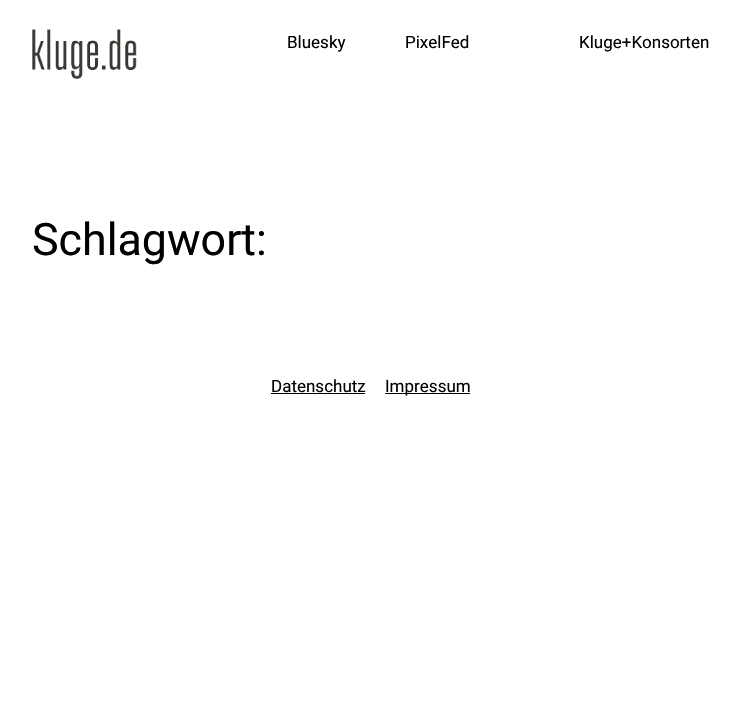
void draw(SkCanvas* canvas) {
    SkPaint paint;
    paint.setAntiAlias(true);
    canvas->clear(0xFFFFFFFF);
    canvas->drawImageRect(SkImages::DeferredFromEncodedData(SkData::MakeFromFileName("img1.png")), SkRect::MakeXYWH(32, 29, 105, 50), SkSamplingOptions());
    SkFont font1(fontMgr->matchFamilyStyle("Roboto", SkFontStyle::Normal()), 17);
    font1.setSubpixel(true);
    paint.setColor(0xFF000000);
    canvas->drawString("Bluesky", 287, 48, font1, paint);
    canvas->drawString("PixelFed", 405, 48, font1, paint);
    canvas->drawString("Kluge+Konsorten", 579, 48, font1, paint);
    SkFont font2(fontMgr->matchFamilyStyle("Roboto", SkFontStyle::Normal()), 44.75f);
    font2.setSubpixel(true);
    canvas->drawString("Schlagwort:", 32, 255, font2, paint);
    canvas->drawString("Datenschutz", 271, 392, font1, paint);
    canvas->drawRect(SkRect::MakeXYWH(271, 393, 94, 1), paint);
    canvas->drawRect(SkRect::MakeXYWH(385, 393, 85, 1), paint);
    canvas->drawString("Impressum", 385, 392, font1, paint);
}
